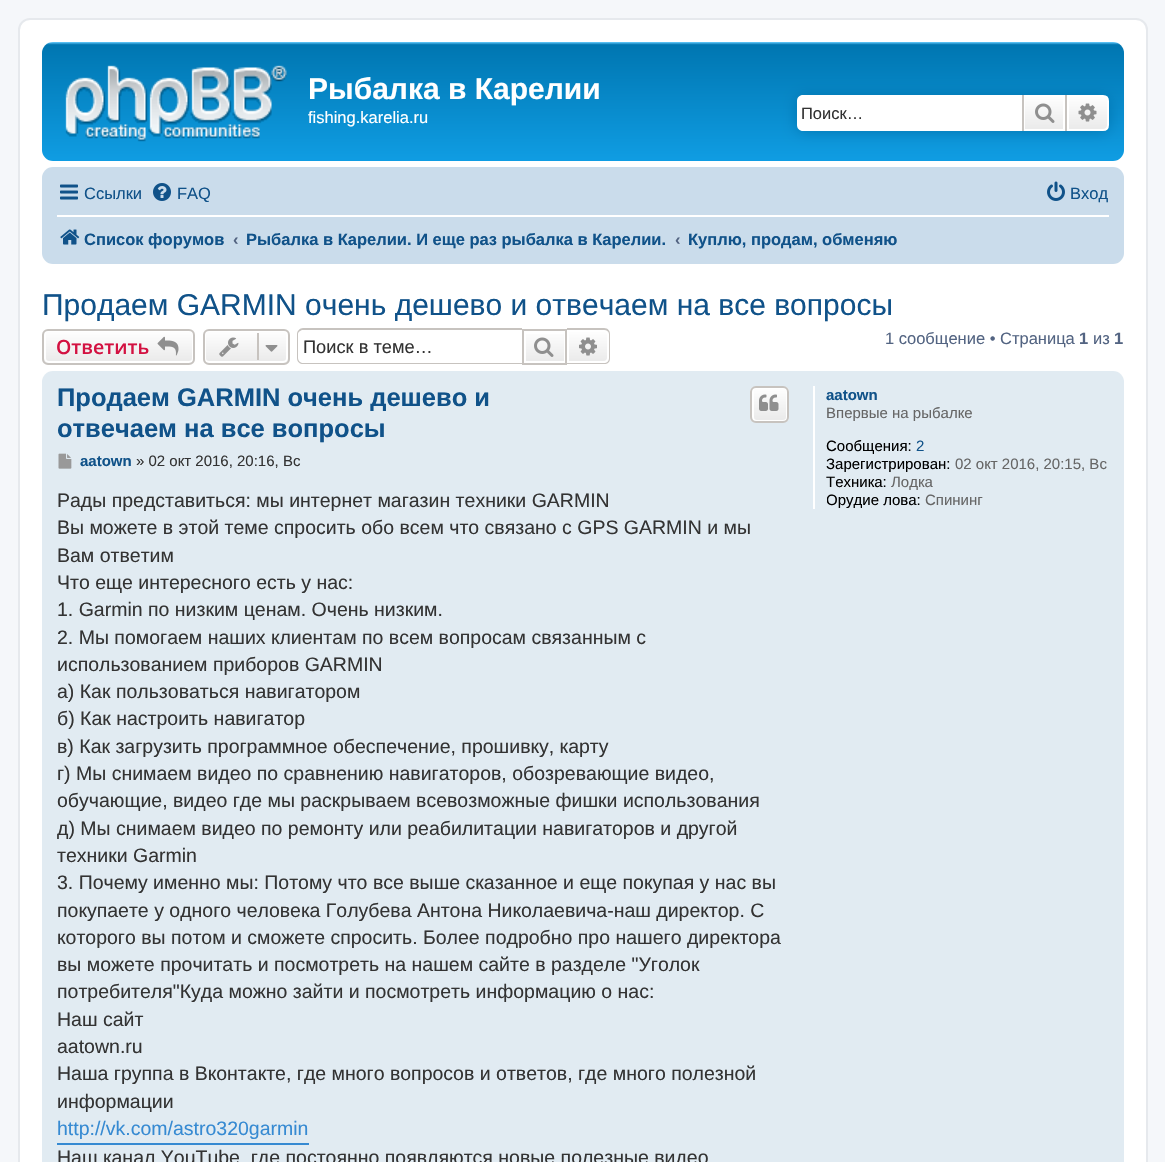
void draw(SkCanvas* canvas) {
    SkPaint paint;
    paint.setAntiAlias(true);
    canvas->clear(0xFFF5F7FA);
    paint.setColor(0xFFFFFFFF);
    canvas->drawRoundRect(SkRect::MakeXYWH(19, 19, 1128, 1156), 11, 11, paint);
    paint.setStyle(SkPaint::kStroke_Style);
    paint.setStrokeWidth(2);
    paint.setColor(0xFFE6E9ED);
    canvas->drawRoundRect(SkRect::MakeXYWH(19, 19, 1128, 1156), 11, 11, paint);
    paint.setStyle(SkPaint::kFill_Style);
    {
        const SkColor colors[] = {0xFF6ACEFF, 0xFF0076B1, 0xFF12A3EB};
        const float stops[] = {0, 0.02f, 1};
        const SkPoint ends[] = {{583, 42}, {583, 180}};
        paint.setShader(SkGradientShader::MakeLinear(ends, colors, stops, 3, SkTileMode::kClamp));
        paint.setAlpha(255);
    }
    canvas->drawRoundRect(SkRect::MakeXYWH(42, 42, 1082, 119), 11, 11, paint);
    canvas->drawImageRect(SkImages::DeferredFromEncodedData(SkData::MakeFromFileName("img1.png")), SkRect::MakeXYWH(65, 65, 222, 77), SkSamplingOptions());
    SkFont font1(fontMgr->matchFamilyStyle("Liberation Sans", SkFontStyle::Bold()), 30);
    font1.setSubpixel(true);
    paint.setShader(nullptr);
    paint.setColor(0xFFFFFFFF);
    canvas->drawString("Рыбалка в Карелии", 308, 99, font1, paint);
    SkFont font2(fontMgr->matchFamilyStyle("Liberation Sans", SkFontStyle::Normal()), 16.5f);
    font2.setSubpixel(true);
    canvas->drawString("fishing.karelia.ru", 308, 123, font2, paint);
    paint.setColor(0xFF0075B0);
    paint.setMaskFilter(SkMaskFilter::MakeBlur(kNormal_SkBlurStyle, 7.5f));
    canvas->drawRoundRect(SkRect::MakeXYWH(797, 95, 312, 36), 6, 6, paint);
    paint.setMaskFilter(nullptr);
    paint.setColor(0xFFFFFFFF);
    canvas->drawPath(SkPathBuilder().moveTo(803, 95).lineTo(1022, 95).lineTo(1022, 131).lineTo(803, 131).cubicTo(799.5f, 131, 797, 128.5f, 797, 125).lineTo(797, 101).cubicTo(797, 97.5f, 799.5f, 95, 803, 95).close().detach(), paint);
    paint.setColor(0xFF333333);
    canvas->drawString("Поиск…", 801, 119, font2, paint);
    {
        const SkColor colors[] = {0xFFFFFFFF, 0xFFE9E9E9};
        const float stops[] = {0, 1};
        const SkPoint ends[] = {{1044, 95}, {1044, 131}};
        paint.setShader(SkGradientShader::MakeLinear(ends, colors, stops, 2, SkTileMode::kClamp));
        paint.setAlpha(255);
    }
    canvas->drawRect(SkRect::MakeXYWH(1025, 97, 38, 32), paint);
    paint.setStyle(SkPaint::kStroke_Style);
    paint.setShader(nullptr);
    paint.setColor(0xFFFFFFFF);
    canvas->drawRect(SkRect::MakeXYWH(1024, 96, 40, 34), paint);
    paint.setStyle(SkPaint::kFill_Style);
    paint.setColor(0xFFC7C3BF);
    canvas->drawRect(SkRect::MakeXYWH(1065, 95, 2, 36), paint);
    canvas->drawRect(SkRect::MakeXYWH(1022, 95, 2, 36), paint);
    canvas->drawImageRect(SkImages::DeferredFromEncodedData(SkData::MakeFromFileName("img2.png")), SkRect::MakeXYWH(1035, 103, 20, 20), SkSamplingOptions());
    {
        const SkColor colors[] = {0xFFFFFFFF, 0xFFE9E9E9};
        const float stops[] = {0, 1};
        const SkPoint ends[] = {{1088, 95}, {1088, 131}};
        paint.setShader(SkGradientShader::MakeLinear(ends, colors, stops, 2, SkTileMode::kClamp));
        paint.setAlpha(255);
    }
    canvas->drawPath(SkPathBuilder().moveTo(1068, 96).lineTo(1103, 96).cubicTo(1106, 96, 1108, 98, 1108, 101).lineTo(1108, 125).cubicTo(1108, 128, 1106, 130, 1103, 130).lineTo(1068, 130).close().detach(), paint);
    paint.setStyle(SkPaint::kStroke_Style);
    paint.setShader(nullptr);
    paint.setColor(0xFFFFFFFF);
    canvas->drawPath(SkPathBuilder().moveTo(1068, 96).lineTo(1103, 96).cubicTo(1106, 96, 1108, 98, 1108, 101).lineTo(1108, 125).cubicTo(1108, 128, 1106, 130, 1103, 130).lineTo(1068, 130).close().detach(), paint);
    canvas->drawImageRect(SkImages::DeferredFromEncodedData(SkData::MakeFromFileName("img3.png")), SkRect::MakeXYWH(1078, 103, 19, 19), SkSamplingOptions());
    paint.setStyle(SkPaint::kFill_Style);
    paint.setColor(0xFFCADCEB);
    canvas->drawRoundRect(SkRect::MakeXYWH(42, 167, 1082, 97), 11, 11, paint);
    canvas->drawImageRect(SkImages::DeferredFromEncodedData(SkData::MakeFromFileName("img4.png")), SkRect::MakeXYWH(60, 184, 18, 16), SkSamplingOptions());
    paint.setColor(0xFF105289);
    canvas->drawString("Ссылки", 84, 199, font2, paint);
    canvas->drawImageRect(SkImages::DeferredFromEncodedData(SkData::MakeFromFileName("img5.png")), SkRect::MakeXYWH(153, 183, 18, 18), SkSamplingOptions());
    canvas->drawString("FAQ", 177, 199, font2, paint);
    canvas->drawImageRect(SkImages::DeferredFromEncodedData(SkData::MakeFromFileName("img6.png")), SkRect::MakeXYWH(1047, 181, 18, 20), SkSamplingOptions());
    canvas->drawString("Вход", 1070, 199, font2, paint);
    paint.setColor(0xFFFFFFFF);
    canvas->drawRect(SkRect::MakeXYWH(57, 215, 1052, 2), paint);
    canvas->drawImageRect(SkImages::DeferredFromEncodedData(SkData::MakeFromFileName("img7.png")), SkRect::MakeXYWH(60, 229, 20, 16), SkSamplingOptions());
    SkFont font3(fontMgr->matchFamilyStyle("Liberation Sans", SkFontStyle::Bold()), 16.5f);
    font3.setSubpixel(true);
    paint.setColor(0xFF105289);
    canvas->drawString("Список форумов", 84, 245, font3, paint);
    paint.setColor(0xFF536482);
    canvas->drawString("‹", 233, 245, font3, paint);
    paint.setColor(0xFF105289);
    canvas->drawString("Рыбалка в Карелии. И еще раз рыбалка в Карелии.", 246, 245, font3, paint);
    paint.setColor(0xFF536482);
    canvas->drawString("‹", 675, 245, font3, paint);
    paint.setColor(0xFF105289);
    canvas->drawString("Куплю, продам, обменяю", 688, 245, font3, paint);
    SkFont font4(fontMgr->matchFamilyStyle("Liberation Sans", SkFontStyle::Normal()), 30);
    font4.setSubpixel(true);
    canvas->drawString("Продаем GARMIN очень дешево и отвечаем на все вопросы", 42, 315, font4, paint);
    canvas->save();
    canvas->clipPath(SkPathBuilder().moveTo(48, 329).lineTo(189, 329).cubicTo(192.5f, 329, 195, 331.5f, 195, 335).lineTo(195, 359).cubicTo(195, 362.5f, 192.5f, 365, 189, 365).lineTo(48, 365).cubicTo(44.5f, 365, 42, 362.5f, 42, 359).lineTo(42, 335).cubicTo(42, 331.5f, 44.5f, 329, 48, 329).close().detach(), true);
    {
        const SkColor colors[] = {0xFFFFFFFF, 0xFFE9E9E9};
        const float stops[] = {0, 1};
        const SkPoint ends[] = {{119, 330}, {119, 363}};
        paint.setShader(SkGradientShader::MakeLinear(ends, colors, stops, 2, SkTileMode::kClamp));
        paint.setAlpha(255);
    }
    canvas->drawRect(SkRect::MakeXYWH(42, 330, 153, 33), paint);
    canvas->restore();
    paint.setStyle(SkPaint::kStroke_Style);
    paint.setShader(nullptr);
    paint.setColor(0xFFFFFFFF);
    canvas->drawRoundRect(SkRect::MakeXYWH(45, 331, 148, 31), 4, 4, paint);
    paint.setColor(0xFFC7C3BF);
    canvas->drawRoundRect(SkRect::MakeXYWH(43, 330, 151, 34), 5, 5, paint);
    SkFont font5(fontMgr->matchFamilyStyle("Open Sans", SkFontStyle(600, SkFontStyle::kNormal_Width, SkFontStyle::kUpright_Slant)), 19.5f);
    font5.setSubpixel(true);
    paint.setStyle(SkPaint::kFill_Style);
    paint.setColor(0xFFD31141);
    canvas->drawString("Ответить", 56, 354, font5, paint);
    canvas->drawImageRect(SkImages::DeferredFromEncodedData(SkData::MakeFromFileName("img8.png")), SkRect::MakeXYWH(157, 336, 22, 20), SkSamplingOptions());
    canvas->save();
    canvas->clipPath(SkPathBuilder().moveTo(209, 329).lineTo(284, 329).cubicTo(287.5f, 329, 290, 331.5f, 290, 335).lineTo(290, 359).cubicTo(290, 362.5f, 287.5f, 365, 284, 365).lineTo(209, 365).cubicTo(205.5f, 365, 203, 362.5f, 203, 359).lineTo(203, 335).cubicTo(203, 331.5f, 205.5f, 329, 209, 329).close().detach(), true);
    {
        const SkColor colors[] = {0xFFFFFFFF, 0xFFE9E9E9};
        const float stops[] = {0, 1};
        const SkPoint ends[] = {{246, 330}, {246, 363}};
        paint.setShader(SkGradientShader::MakeLinear(ends, colors, stops, 2, SkTileMode::kClamp));
        paint.setAlpha(255);
    }
    canvas->drawRect(SkRect::MakeXYWH(203, 330, 87, 33), paint);
    canvas->restore();
    paint.setStyle(SkPaint::kStroke_Style);
    paint.setShader(nullptr);
    paint.setColor(0xFFFFFFFF);
    canvas->drawRoundRect(SkRect::MakeXYWH(205, 331, 82, 31), 4, 4, paint);
    paint.setColor(0xFFC7C3BF);
    canvas->drawRoundRect(SkRect::MakeXYWH(204, 330, 85, 34), 5, 5, paint);
    canvas->drawImageRect(SkImages::DeferredFromEncodedData(SkData::MakeFromFileName("img9.png")), SkRect::MakeXYWH(219, 337, 20, 20), SkSamplingOptions());
    paint.setStyle(SkPaint::kFill_Style);
    canvas->drawRect(SkRect::MakeXYWH(257, 333, 2, 27), paint);
    canvas->drawImageRect(SkImages::DeferredFromEncodedData(SkData::MakeFromFileName("img10.png")), SkRect::MakeXYWH(265, 345, 13, 7), SkSamplingOptions());
    canvas->drawPath(SkPathBuilder(SkPathFillType::kEvenOdd).moveTo(303, 328).lineTo(522, 328).lineTo(522, 364).lineTo(303, 364).cubicTo(300, 364, 297, 362, 297, 358).lineTo(297, 334).cubicTo(297, 331, 300, 328, 303, 328).close().moveTo(303, 330).lineTo(522, 330).lineTo(522, 363).lineTo(303, 363).cubicTo(301, 363, 298, 361, 298, 358).lineTo(298, 334).cubicTo(298, 332, 301, 330, 303, 330).close().detach(), paint);
    SkFont font6(fontMgr->matchFamilyStyle("Liberation Sans", SkFontStyle::Normal()), 18.25f);
    font6.setSubpixel(true);
    paint.setColor(0xFF333333);
    canvas->drawString("Поиск в теме…", 303, 353, font6, paint);
    {
        const SkColor colors[] = {0xFFFFFFFF, 0xFFE9E9E9};
        const float stops[] = {0, 1};
        const SkPoint ends[] = {{545, 330}, {545, 363}};
        paint.setShader(SkGradientShader::MakeLinear(ends, colors, stops, 2, SkTileMode::kClamp));
        paint.setAlpha(255);
    }
    canvas->drawRect(SkRect::MakeXYWH(526, 334, 38, 27), paint);
    paint.setStyle(SkPaint::kStroke_Style);
    paint.setShader(nullptr);
    paint.setColor(0xFFC7C3BF);
    canvas->drawRect(SkRect::MakeXYWH(523, 330, 43, 34), paint);
    canvas->drawImageRect(SkImages::DeferredFromEncodedData(SkData::MakeFromFileName("img11.png")), SkRect::MakeXYWH(534, 337, 20, 20), SkSamplingOptions());
    paint.setStyle(SkPaint::kFill_Style);
    {
        const SkColor colors[] = {0xFFFFFFFF, 0xFFE9E9E9};
        const float stops[] = {0, 1};
        const SkPoint ends[] = {{588, 330}, {588, 363}};
        paint.setShader(SkGradientShader::MakeLinear(ends, colors, stops, 2, SkTileMode::kClamp));
        paint.setAlpha(255);
    }
    canvas->drawPath(SkPathBuilder().moveTo(568, 331).lineTo(604, 331).cubicTo(606, 331, 608, 333, 608, 335).lineTo(608, 358).cubicTo(608, 360, 606, 362, 604, 362).lineTo(568, 362).close().detach(), paint);
    paint.setStyle(SkPaint::kStroke_Style);
    paint.setShader(nullptr);
    paint.setColor(0xFFFFFFFF);
    canvas->drawPath(SkPathBuilder().moveTo(568, 331).lineTo(604, 331).cubicTo(606, 331, 608, 333, 608, 335).lineTo(608, 358).cubicTo(608, 360, 606, 362, 604, 362).lineTo(568, 362).close().detach(), paint);
    paint.setStyle(SkPaint::kFill_Style);
    paint.setColor(0xFFC7C3BF);
    canvas->drawPath(SkPathBuilder(SkPathFillType::kEvenOdd).moveTo(567, 328).lineTo(604, 328).cubicTo(608, 328, 610, 331, 610, 334).lineTo(610, 358).cubicTo(610, 362, 608, 364, 604, 364).lineTo(567, 364).close().moveTo(567, 330).lineTo(604, 330).cubicTo(607, 330, 609, 332, 609, 334).lineTo(609, 358).cubicTo(609, 361, 607, 363, 604, 363).lineTo(567, 363).close().detach(), paint);
    canvas->drawImageRect(SkImages::DeferredFromEncodedData(SkData::MakeFromFileName("img12.png")), SkRect::MakeXYWH(579, 337, 18, 19), SkSamplingOptions());
    paint.setColor(0xFF536482);
    canvas->drawString("1 сообщение • Страница", 885, 344, font2, paint);
    canvas->drawString("1", 1079, 344, font3, paint);
    canvas->drawString("из", 1093, 344, font2, paint);
    canvas->drawString("1", 1114, 344, font3, paint);
    paint.setColor(0xFFE1EBF2);
    canvas->drawRoundRect(SkRect::MakeXYWH(42, 371, 1082, 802), 11, 11, paint);
    SkFont font7(fontMgr->matchFamilyStyle("Liberation Sans", SkFontStyle::Bold()), 25.5f);
    font7.setSubpixel(true);
    paint.setColor(0xFF105289);
    canvas->drawString("Продаем GARMIN очень дешево и", 57, 406, font7, paint);
    canvas->drawString("отвечаем на все вопросы", 57, 437, font7, paint);
    canvas->save();
    canvas->clipPath(SkPathBuilder().moveTo(756, 386).lineTo(783, 386).cubicTo(786.5f, 386, 789, 388.5f, 789, 392).lineTo(789, 417).cubicTo(789, 420.5f, 786.5f, 423, 783, 423).lineTo(756, 423).cubicTo(752.5f, 423, 750, 420.5f, 750, 417).lineTo(750, 392).cubicTo(750, 388.5f, 752.5f, 386, 756, 386).close().detach(), true);
    {
        const SkColor colors[] = {0xFFFFFFFF, 0xFFE9E9E9};
        const float stops[] = {0, 1};
        const SkPoint ends[] = {{770, 387}, {770, 422}};
        paint.setShader(SkGradientShader::MakeLinear(ends, colors, stops, 2, SkTileMode::kClamp));
        paint.setAlpha(255);
    }
    canvas->drawRect(SkRect::MakeXYWH(750, 387, 39, 35), paint);
    canvas->restore();
    paint.setStyle(SkPaint::kStroke_Style);
    paint.setShader(nullptr);
    paint.setColor(0xFFFFFFFF);
    canvas->drawRoundRect(SkRect::MakeXYWH(753, 388, 34, 33), 4, 4, paint);
    paint.setColor(0xFFC7C3BF);
    canvas->drawRoundRect(SkRect::MakeXYWH(751, 387, 37, 35), 5, 5, paint);
    canvas->drawImageRect(SkImages::DeferredFromEncodedData(SkData::MakeFromFileName("img13.png")), SkRect::MakeXYWH(759, 394, 20, 17), SkSamplingOptions());
    canvas->drawImageRect(SkImages::DeferredFromEncodedData(SkData::MakeFromFileName("img14.png")), SkRect::MakeXYWH(58, 453, 14, 16), SkSamplingOptions());
    SkFont font8(fontMgr->matchFamilyStyle("Liberation Sans", SkFontStyle::Bold()), 15);
    font8.setSubpixel(true);
    paint.setStyle(SkPaint::kFill_Style);
    paint.setColor(0xFF105289);
    canvas->drawString("aatown", 80, 466, font8, paint);
    SkFont font9(fontMgr->matchFamilyStyle("Liberation Sans", SkFontStyle::Normal()), 15);
    font9.setSubpixel(true);
    paint.setColor(0xFF333333);
    canvas->drawString("» 02 окт 2016, 20:16, Вс", 136, 466, font9, paint);
    SkFont font10(fontMgr->matchFamilyStyle("Liberation Sans", SkFontStyle::Normal()), 19.5f);
    font10.setSubpixel(true);
    canvas->drawString("Рады представиться: мы интернет магазин техники GARMIN", 57, 507, font10, paint);
    canvas->drawString("Вы можете в этой теме спросить обо всем что связано с GPS GARMIN и мы", 57, 534, font10, paint);
    canvas->drawString("Вам ответим", 57, 562, font10, paint);
    canvas->drawString("Что еще интересного есть у нас:", 57, 589, font10, paint);
    canvas->drawString("1. Garmin по низким ценам. Очень низким.", 57, 616, font10, paint);
    canvas->drawString("2. Мы помогаем наших клиентам по всем вопросам связанным с", 57, 644, font10, paint);
    canvas->drawString("использованием приборов GARMIN", 57, 671, font10, paint);
    canvas->drawString("а) Как пользоваться навигатором", 57, 698, font10, paint);
    canvas->drawString("б) Как настроить навигатор", 57, 725, font10, paint);
    canvas->drawString("в) Как загрузить программное обеспечение, прошивку, карту", 57, 753, font10, paint);
    canvas->drawString("г) Мы снимаем видео по сравнению навигаторов, обозревающие видео,", 57, 780, font10, paint);
    canvas->drawString("обучающие, видео где мы раскрываем всевозможные фишки использования", 57, 807, font10, paint);
    canvas->drawString("д) Мы снимаем видео по ремонту или реабилитации навигаторов и другой", 57, 835, font10, paint);
    canvas->drawString("техники Garmin", 57, 862, font10, paint);
    canvas->drawString("3. Почему именно мы: Потому что все выше сказанное и еще покупая у нас вы", 57, 889, font10, paint);
    canvas->drawString("покупаете у одного человека Голубева Антона Николаевича-наш директор. С", 57, 917, font10, paint);
    canvas->drawString("которого вы потом и сможете спросить. Более подробно про нашего директора", 57, 944, font10, paint);
    canvas->drawString("вы можете прочитать и посмотреть на нашем сайте в разделе \"Уголок", 57, 971, font10, paint);
    canvas->drawString("потребителя\"Куда можно зайти и посмотреть информацию о нас:", 57, 998, font10, paint);
    canvas->drawString("Наш сайт", 57, 1026, font10, paint);
    canvas->drawString("aatown.ru", 57, 1053, font10, paint);
    canvas->drawString("Наша группа в Вконтакте, где много вопросов и ответов, где много полезной", 57, 1080, font10, paint);
    canvas->drawString("информации", 57, 1108, font10, paint);
    paint.setColor(0xFF368AD2);
    canvas->drawRect(SkRect::MakeXYWH(57, 1143, 252, 2), paint);
    canvas->drawString("http://vk.com/astro320garmin", 57, 1135, font10, paint);
    paint.setColor(0xFF333333);
    canvas->drawString("Наш канал YouTube, где постоянно появляются новые полезные видео", 57, 1164, font10, paint);
    paint.setColor(0xFFFFFFFF);
    canvas->drawRect(SkRect::MakeXYWH(813, 386, 2, 123), paint);
    paint.setColor(0xFF105289);
    canvas->drawString("aatown", 826, 400, font8, paint);
    paint.setColor(0xFF666666);
    canvas->drawString("Впервые на рыбалке", 826, 418, font9, paint);
    paint.setColor(0xFF000000);
    canvas->drawString("Сообщения:", 826, 451, font9, paint);
    paint.setColor(0xFF105289);
    canvas->drawString("2", 916, 451, font9, paint);
    paint.setColor(0xFF000000);
    canvas->drawString("Зарегистрирован:", 826, 469, font9, paint);
    paint.setColor(0xFF666666);
    canvas->drawString("02 окт 2016, 20:15, Вс", 955, 469, font9, paint);
    paint.setColor(0xFF000000);
    canvas->drawString("Техника:", 826, 487, font9, paint);
    paint.setColor(0xFF666666);
    canvas->drawString("Лодка", 891, 487, font9, paint);
    canvas->save();
    canvas->clipRect(SkRect::MakeXYWH(827, 491, 282, 18));
    paint.setColor(0xFF000000);
    canvas->drawString("Орудие лова:", 826, 505, font9, paint);
    canvas->restore();
    paint.setColor(0xFF666666);
    canvas->drawString("Спининг", 925, 505, font9, paint);
}
